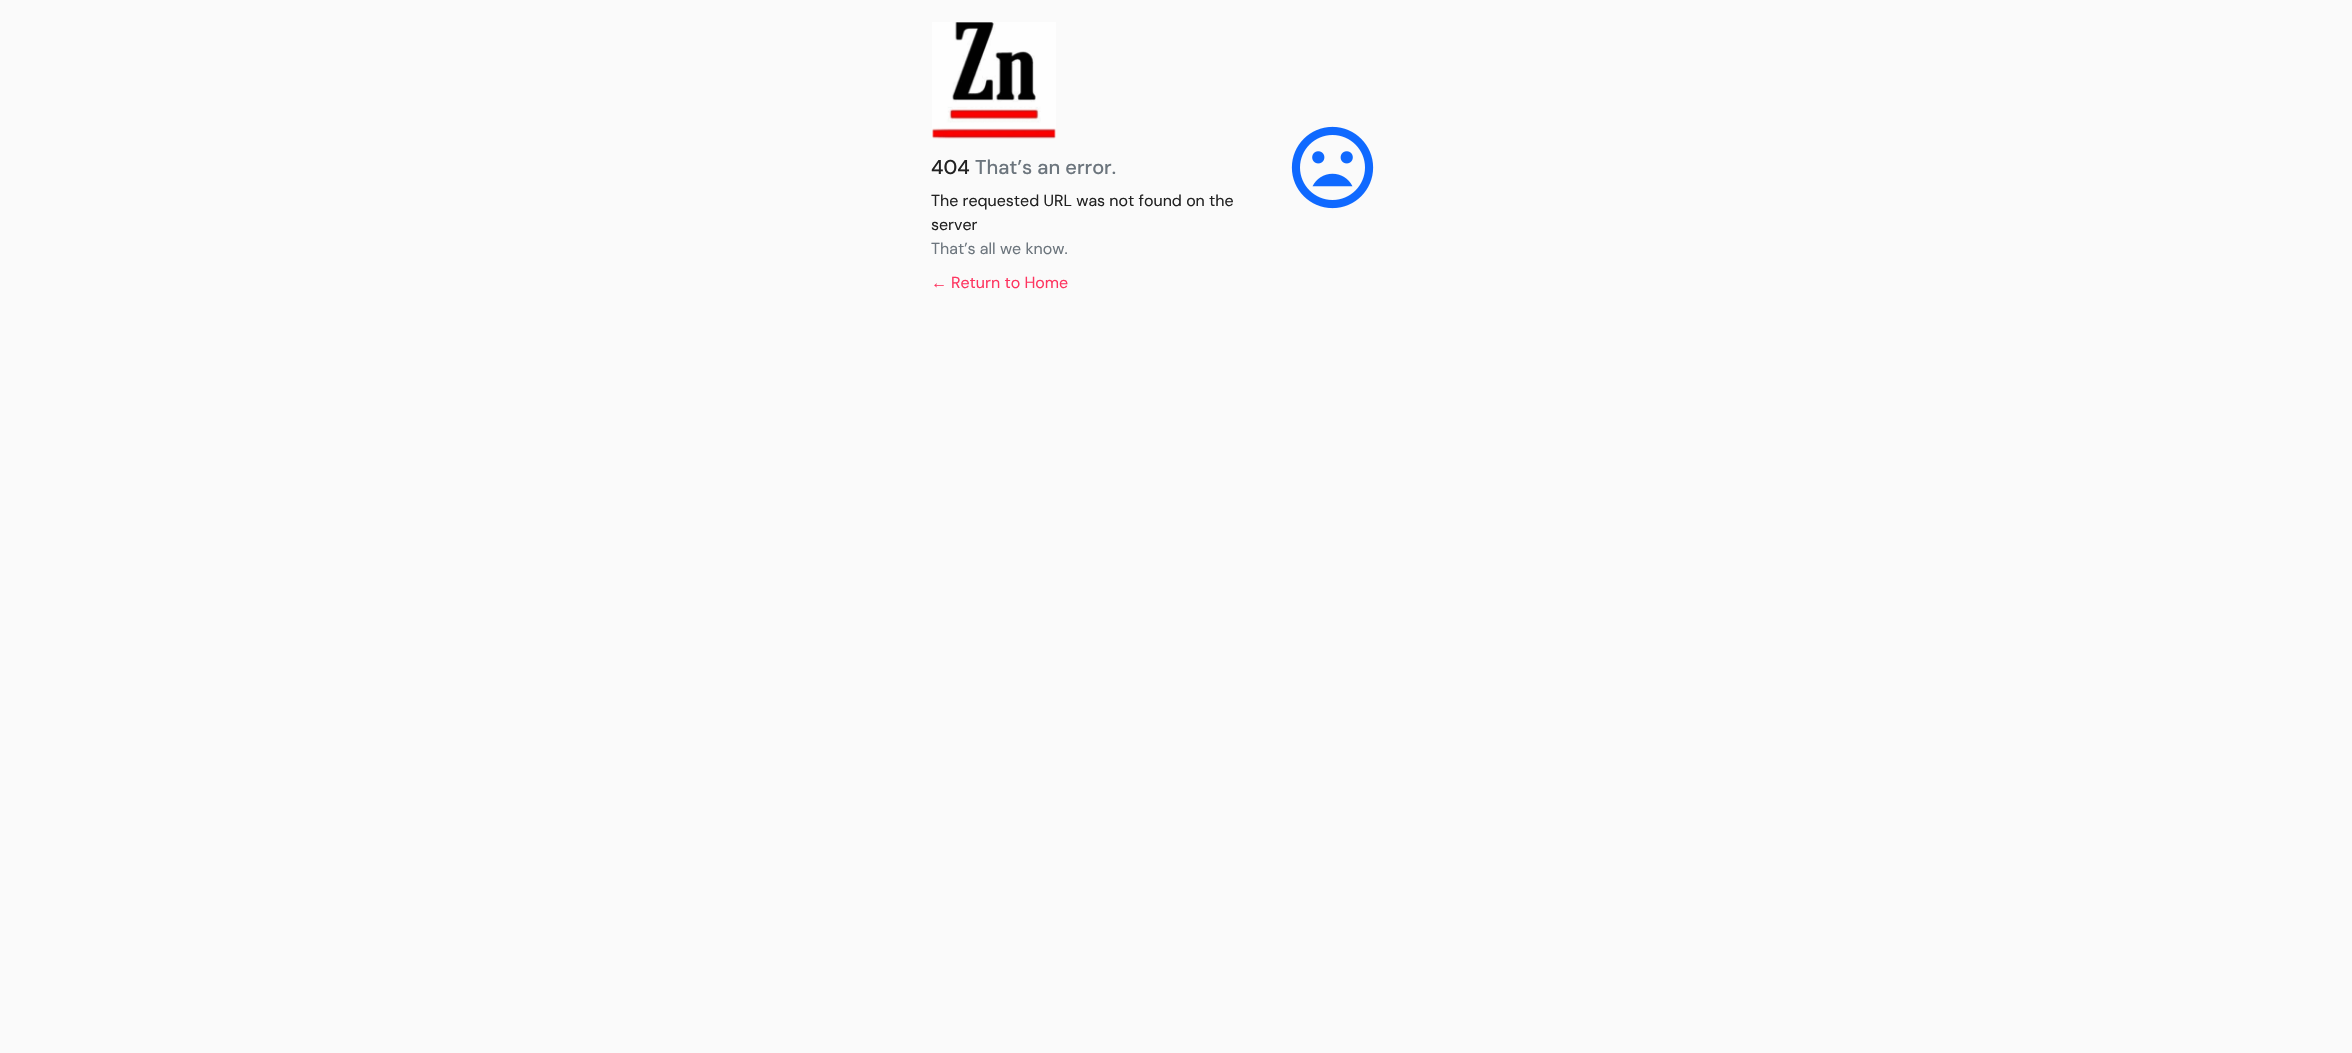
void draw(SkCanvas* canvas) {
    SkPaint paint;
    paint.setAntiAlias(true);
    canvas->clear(0xFFFAFAFA);
    canvas->drawImageRect(SkImages::DeferredFromEncodedData(SkData::MakeFromFileName("img1.png")), SkRect::MakeXYWH(932, 22, 124, 117), SkSamplingOptions());
    SkFont font1(fontMgr->matchFamilyStyle("DM Sans", SkFontStyle(500, SkFontStyle::kNormal_Width, SkFontStyle::kUpright_Slant)), 20);
    font1.setSubpixel(true);
    paint.setColor(0xFF222222);
    canvas->drawString("404", 931, 174, font1, paint);
    paint.setColor(0xFF6C757D);
    canvas->drawString("That’s an error.", 975, 174, font1, paint);
    SkFont font2(fontMgr->matchFamilyStyle("DM Sans", SkFontStyle::Normal()), 16);
    font2.setSubpixel(true);
    paint.setColor(0xFF222222);
    canvas->drawString("The requested URL was not found on the", 931, 206, font2, paint);
    canvas->drawString("server", 931, 230, font2, paint);
    paint.setColor(0xFF6C757D);
    canvas->drawString("That’s all we know.", 931, 254, font2, paint);
    SkFont font3(fontMgr->matchFamilyStyle("Liberation Sans", SkFontStyle::Normal()), 16);
    font3.setSubpixel(true);
    paint.setColor(0xFFFE3560);
    canvas->drawString("←", 931, 288, font3, paint);
    canvas->drawString("Return to Home", 951, 288, font2, paint);
    canvas->drawImageRect(SkImages::DeferredFromEncodedData(SkData::MakeFromFileName("img2.png")), SkRect::MakeXYWH(1291, 126, 83, 83), SkSamplingOptions());
}
